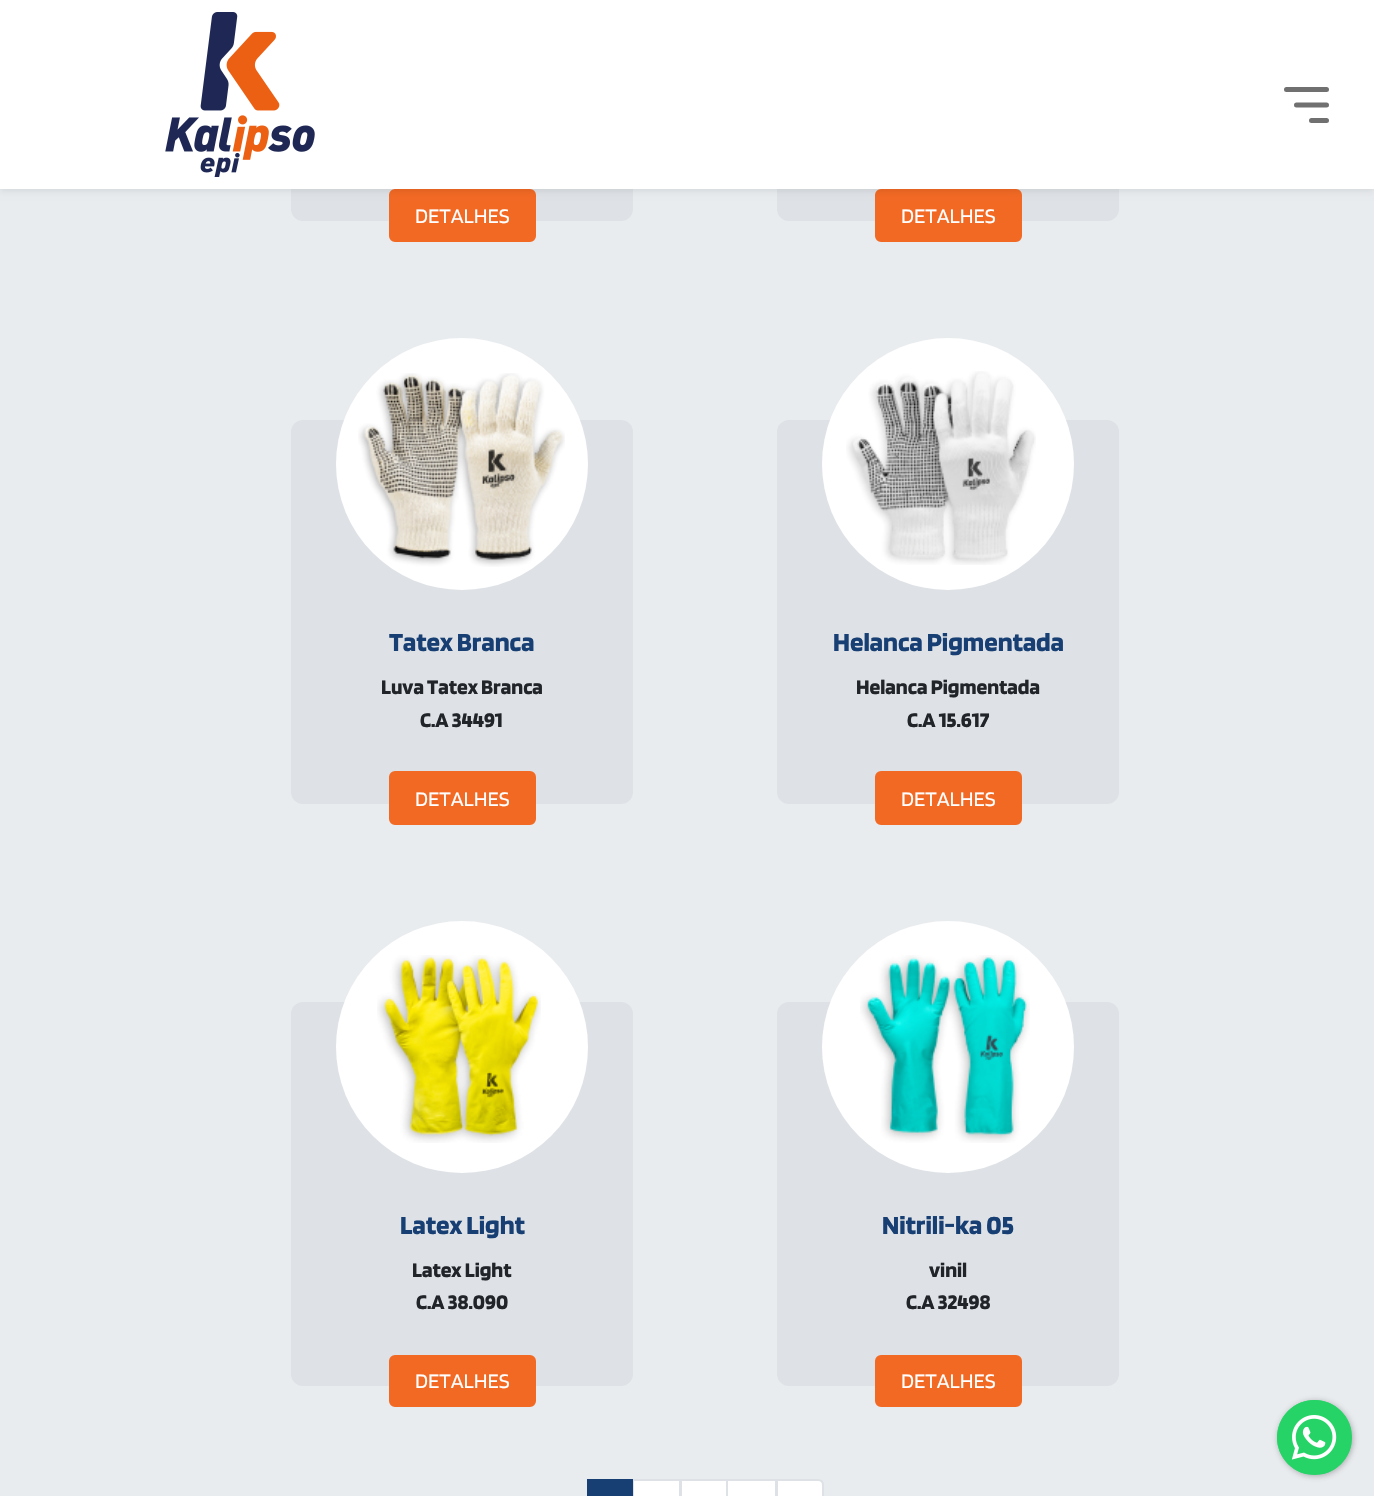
void draw(SkCanvas* canvas) {
    SkPaint paint;
    paint.setAntiAlias(true);
    canvas->clear(0xFFE9ECEF);
    paint.setColor(0xFFDEE2E6);
    canvas->drawRoundRect(SkRect::MakeXYWH(291, -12, 342, 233), 12, 12, paint);
    paint.setColor(0xFFF26924);
    canvas->drawRoundRect(SkRect::MakeXYWH(390, 190, 145, 51), 5, 5, paint);
    paint.setStyle(SkPaint::kStroke_Style);
    paint.setStrokeWidth(2);
    canvas->drawRoundRect(SkRect::MakeXYWH(390, 190, 145, 51), 5, 5, paint);
    paint.setStyle(SkPaint::kFill_Style);
    paint.setColor(0xFFDEE2E6);
    canvas->drawRoundRect(SkRect::MakeXYWH(777, -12, 342, 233), 12, 12, paint);
    paint.setColor(0xFFF26924);
    canvas->drawRoundRect(SkRect::MakeXYWH(876, 190, 145, 51), 5, 5, paint);
    paint.setStyle(SkPaint::kStroke_Style);
    canvas->drawRoundRect(SkRect::MakeXYWH(876, 190, 145, 51), 5, 5, paint);
    paint.setStyle(SkPaint::kFill_Style);
    paint.setColor(0x12000000);
    paint.setMaskFilter(SkMaskFilter::MakeBlur(kNormal_SkBlurStyle, 3));
    canvas->drawRect(SkRect::MakeXYWH(0, 3, 1374, 189), paint);
    paint.setMaskFilter(nullptr);
    paint.setColor(0xFFFFFFFF);
    canvas->drawRect(SkRect::MakeXYWH(0, 0, 1374, 189), paint);
    canvas->drawImageRect(SkImages::DeferredFromEncodedData(SkData::MakeFromFileName("img1.png")), SkRect::MakeXYWH(165, 12, 150, 165), SkSamplingOptions());
    paint.setStyle(SkPaint::kStroke_Style);
    paint.setStrokeWidth(5);
    paint.setStrokeCap(SkPaint::kRound_Cap);
    paint.setColor(0xFF707070);
    canvas->drawPath(SkPathBuilder().moveTo(1286.5f, 89.5f).lineTo(1326.5f, 89.5f).moveTo(1296.5f, 105).lineTo(1326.5f, 105).moveTo(1311.5f, 120.5f).lineTo(1326.5f, 120.5f).detach(), paint);
    SkFont font1(fontMgr->matchFamilyStyle("Blinker", SkFontStyle::Normal()), 21.5f);
    font1.setSubpixel(true);
    paint.setStyle(SkPaint::kFill_Style);
    paint.setColor(0xFFFFFFFF);
    canvas->drawString("DETALHES", 415, 223, font1, paint);
    canvas->drawString("DETALHES", 901, 223, font1, paint);
    paint.setColor(0xFFDEE2E6);
    canvas->drawRoundRect(SkRect::MakeXYWH(291, 420, 342, 384), 12, 12, paint);
    paint.setColor(0xFFFFFFFF);
    canvas->drawCircle(462, 464, 126, paint);
    canvas->drawImageRect(SkImages::DeferredFromEncodedData(SkData::MakeFromFileName("img2.png")), SkRect::MakeXYWH(358, 373, 207, 194), SkSamplingOptions());
    SkFont font2(fontMgr->matchFamilyStyle("Blinker", SkFontStyle::Bold()), 27);
    font2.setSubpixel(true);
    paint.setColor(0xFF173F73);
    canvas->drawString("Tatex Branca", 389, 651, font2, paint);
    SkFont font3(fontMgr->matchFamilyStyle("Blinker", SkFontStyle::Bold()), 21.5f);
    font3.setSubpixel(true);
    paint.setColor(0xFF212529);
    canvas->drawString("Luva Tatex Branca", 381, 694, font3, paint);
    canvas->drawString("C.A 34491", 420, 727, font3, paint);
    paint.setColor(0xFFF26924);
    canvas->drawRoundRect(SkRect::MakeXYWH(390, 772, 145, 52), 5, 5, paint);
    paint.setStyle(SkPaint::kStroke_Style);
    paint.setStrokeWidth(2);
    paint.setStrokeCap(SkPaint::kButt_Cap);
    canvas->drawRoundRect(SkRect::MakeXYWH(390, 772, 145, 52), 5, 5, paint);
    paint.setStyle(SkPaint::kFill_Style);
    paint.setColor(0xFFFFFFFF);
    canvas->drawString("DETALHES", 415, 806, font1, paint);
    paint.setColor(0xFFDEE2E6);
    canvas->drawRoundRect(SkRect::MakeXYWH(777, 420, 342, 384), 12, 12, paint);
    paint.setColor(0xFFFFFFFF);
    canvas->drawCircle(948, 464, 126, paint);
    canvas->drawImageRect(SkImages::DeferredFromEncodedData(SkData::MakeFromFileName("img3.png")), SkRect::MakeXYWH(846, 371, 190, 194), SkSamplingOptions());
    paint.setColor(0xFF173F73);
    canvas->drawString("Helanca Pigmentada", 833, 651, font2, paint);
    paint.setColor(0xFF212529);
    canvas->drawString("Helanca Pigmentada", 856, 694, font3, paint);
    canvas->drawString("C.A 15.617", 907, 727, font3, paint);
    paint.setColor(0xFFF26924);
    canvas->drawRoundRect(SkRect::MakeXYWH(876, 772, 145, 52), 5, 5, paint);
    paint.setStyle(SkPaint::kStroke_Style);
    canvas->drawRoundRect(SkRect::MakeXYWH(876, 772, 145, 52), 5, 5, paint);
    paint.setStyle(SkPaint::kFill_Style);
    paint.setColor(0xFFFFFFFF);
    canvas->drawString("DETALHES", 901, 806, font1, paint);
    paint.setColor(0xFFDEE2E6);
    canvas->drawRoundRect(SkRect::MakeXYWH(291, 1002, 342, 384), 12, 12, paint);
    paint.setColor(0xFFFFFFFF);
    canvas->drawCircle(462, 1047, 126, paint);
    canvas->drawImageRect(SkImages::DeferredFromEncodedData(SkData::MakeFromFileName("img4.png")), SkRect::MakeXYWH(377, 955, 164, 188), SkSamplingOptions());
    paint.setColor(0xFF173F73);
    canvas->drawString("Latex Light", 400, 1234, font2, paint);
    paint.setColor(0xFF212529);
    canvas->drawString("Latex Light", 412, 1277, font3, paint);
    canvas->drawString("C.A 38.090", 416, 1309, font3, paint);
    paint.setColor(0xFFF26924);
    canvas->drawRoundRect(SkRect::MakeXYWH(390, 1356, 145, 50), 5, 5, paint);
    paint.setStyle(SkPaint::kStroke_Style);
    canvas->drawRoundRect(SkRect::MakeXYWH(390, 1356, 145, 50), 5, 5, paint);
    paint.setStyle(SkPaint::kFill_Style);
    paint.setColor(0xFFFFFFFF);
    canvas->drawString("DETALHES", 415, 1388, font1, paint);
    paint.setColor(0xFFDEE2E6);
    canvas->drawRoundRect(SkRect::MakeXYWH(777, 1002, 342, 384), 12, 12, paint);
    paint.setColor(0xFFFFFFFF);
    canvas->drawCircle(948, 1047, 126, paint);
    canvas->drawImageRect(SkImages::DeferredFromEncodedData(SkData::MakeFromFileName("img5.png")), SkRect::MakeXYWH(860, 955, 170, 188), SkSamplingOptions());
    paint.setColor(0xFF173F73);
    canvas->drawString("Nitrili-ka 05", 882, 1234, font2, paint);
    paint.setColor(0xFF212529);
    canvas->drawString("vinil", 929, 1277, font3, paint);
    canvas->drawString("C.A 32498", 906, 1309, font3, paint);
    paint.setColor(0xFFF26924);
    canvas->drawRoundRect(SkRect::MakeXYWH(876, 1356, 145, 50), 5, 5, paint);
    paint.setStyle(SkPaint::kStroke_Style);
    canvas->drawRoundRect(SkRect::MakeXYWH(876, 1356, 145, 50), 5, 5, paint);
    paint.setStyle(SkPaint::kFill_Style);
    paint.setColor(0xFFFFFFFF);
    canvas->drawString("DETALHES", 901, 1388, font1, paint);
    paint.setColor(0xFF173F73);
    canvas->drawRect(SkRect::MakeXYWH(587, 1479, 6, 6), paint);
    paint.setColor(0xFFFFFFFF);
    canvas->drawRect(SkRect::MakeXYWH(633, 1480, 47, 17), paint);
    paint.setStyle(SkPaint::kStroke_Style);
    paint.setColor(0xFFDEE2E6);
    canvas->drawRect(SkRect::MakeXYWH(633, 1480, 47, 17), paint);
    paint.setStyle(SkPaint::kFill_Style);
    paint.setColor(0xFF173F73);
    canvas->drawPath(SkPathBuilder().moveTo(593, 1479).lineTo(633, 1479).lineTo(633, 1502).lineTo(593, 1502).cubicTo(589.5f, 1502, 587, 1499.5f, 587, 1496).lineTo(587, 1485).cubicTo(587, 1481.5f, 589.5f, 1479, 593, 1479).close().detach(), paint);
    paint.setColor(0xFFFFFFFF);
    canvas->drawRect(SkRect::MakeXYWH(681, 1480, 46, 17), paint);
    paint.setStyle(SkPaint::kStroke_Style);
    paint.setColor(0xFFDEE2E6);
    canvas->drawRect(SkRect::MakeXYWH(681, 1480, 46, 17), paint);
    paint.setStyle(SkPaint::kFill_Style);
    paint.setColor(0xFFFFFFFF);
    canvas->drawRect(SkRect::MakeXYWH(727, 1480, 49, 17), paint);
    paint.setStyle(SkPaint::kStroke_Style);
    paint.setColor(0xFFDEE2E6);
    canvas->drawRect(SkRect::MakeXYWH(727, 1480, 49, 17), paint);
    paint.setStyle(SkPaint::kFill_Style);
    paint.setColor(0xFFFFFFFF);
    canvas->drawPath(SkPathBuilder().moveTo(777, 1480).lineTo(818, 1480).cubicTo(821, 1480, 823, 1482, 823, 1485).lineTo(823, 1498).cubicTo(823, 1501, 821, 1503, 818, 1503).lineTo(777, 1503).close().detach(), paint);
    paint.setStyle(SkPaint::kStroke_Style);
    paint.setColor(0xFFDEE2E6);
    canvas->drawPath(SkPathBuilder().moveTo(777, 1480).lineTo(818, 1480).cubicTo(821, 1480, 823, 1482, 823, 1485).lineTo(823, 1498).cubicTo(823, 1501, 821, 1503, 818, 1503).lineTo(777, 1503).close().detach(), paint);
    paint.setStyle(SkPaint::kFill_Style);
    paint.setColor(0x663C3C3C);
    paint.setMaskFilter(SkMaskFilter::MakeBlur(kNormal_SkBlurStyle, 3));
    canvas->drawRoundRect(SkRect::MakeXYWH(1278, 1401, 75, 75), 37.5f, 37.5f, paint);
    paint.setMaskFilter(nullptr);
    paint.setColor(0xFF25D366);
    canvas->drawCircle(1314.5f, 1437.5f, 37.5f, paint);
    canvas->drawImageRect(SkImages::DeferredFromEncodedData(SkData::MakeFromFileName("img6.png")), SkRect::MakeXYWH(1277, 1400, 75, 75), SkSamplingOptions());
}
